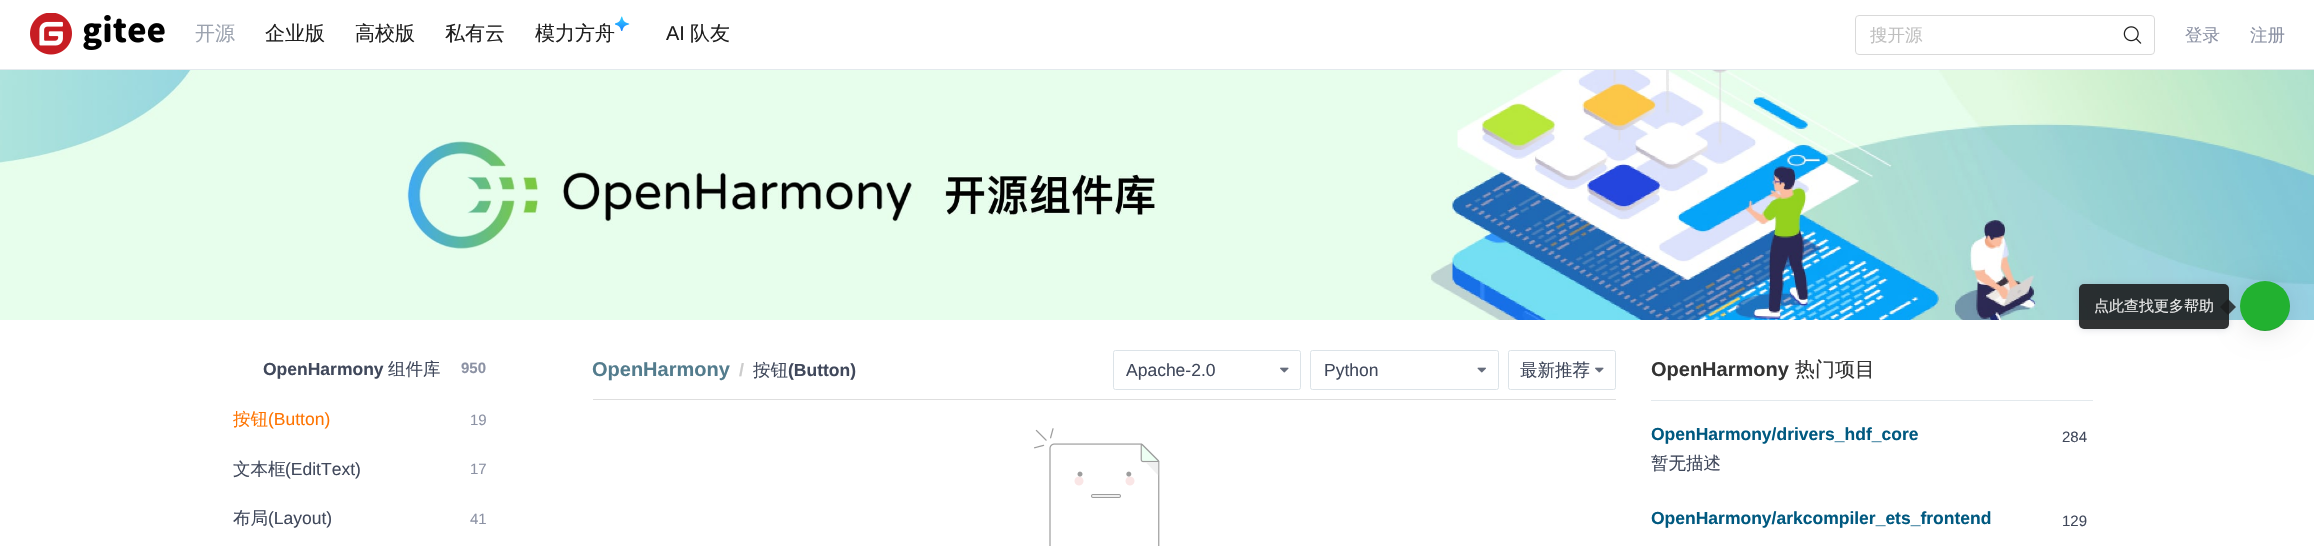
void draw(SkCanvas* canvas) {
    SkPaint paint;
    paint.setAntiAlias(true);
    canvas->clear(0xFFFFFFFF);
    paint.setColor(0xFFE3E9ED);
    canvas->drawRect(SkRect::MakeXYWH(0, 69, 2314, 1), paint);
    canvas->drawImageRect(SkImages::DeferredFromEncodedData(SkData::MakeFromFileName("img1.png")), SkRect::MakeXYWH(30, 13, 135, 42), SkSamplingOptions());
    SkFont font1(fontMgr->matchFamilyStyle("WenQuanYi Zen Hei", SkFontStyle(500, SkFontStyle::kNormal_Width, SkFontStyle::kUpright_Slant)), 20);
    font1.setSubpixel(true);
    paint.setColor(0xFF9CA3AF);
    canvas->drawString("开源", 195, 40, font1, paint);
    paint.setColor(0xFF1F1F1F);
    canvas->drawString("企业版", 265, 40, font1, paint);
    canvas->drawString("高校版", 355, 40, font1, paint);
    canvas->drawString("私有云", 445, 40, font1, paint);
    canvas->drawString("模力方舟", 535, 40, font1, paint);
    canvas->drawImageRect(SkImages::DeferredFromEncodedData(SkData::MakeFromFileName("img2.png")), SkRect::MakeXYWH(615, 16, 15, 15), SkSamplingOptions());
    SkFont font2(fontMgr->matchFamilyStyle("Liberation Sans", SkFontStyle::Normal()), 20);
    font2.setSubpixel(true);
    canvas->drawString("AI", 666, 40, font2, paint);
    canvas->drawString("队友", 690, 40, font1, paint);
    paint.setStyle(SkPaint::kStroke_Style);
    paint.setStrokeWidth(1);
    paint.setColor(0xFFD9D9D9);
    canvas->drawRoundRect(SkRect::MakeXYWH(1855.5f, 15.5f, 299, 39), 3.5f, 3.5f, paint);
    SkFont font3(fontMgr->matchFamilyStyle("WenQuanYi Zen Hei", SkFontStyle(500, SkFontStyle::kNormal_Width, SkFontStyle::kUpright_Slant)), 17.5f);
    font3.setSubpixel(true);
    paint.setStyle(SkPaint::kFill_Style);
    paint.setColor(0xFFBFBFBF);
    canvas->drawString("搜开源", 1870, 41, font3, paint);
    canvas->drawImageRect(SkImages::DeferredFromEncodedData(SkData::MakeFromFileName("img3.png")), SkRect::MakeXYWH(2123, 26, 19, 18), SkSamplingOptions());
    paint.setColor(0xFF8C92A4);
    canvas->drawString("登录", 2185, 41, font3, paint);
    canvas->drawString("注册", 2250, 41, font3, paint);
    canvas->drawImageRect(SkImages::DeferredFromEncodedData(SkData::MakeFromFileName("img4.png")), SkRect::MakeXYWH(0, 70, 2314, 250), SkSamplingOptions());
    paint.setColor(0x1A000000);
    paint.setMaskFilter(SkMaskFilter::MakeBlur(kNormal_SkBlurStyle, 12.5f));
    canvas->drawRoundRect(SkRect::MakeXYWH(2240, 283, 50, 50), 25, 25, paint);
    paint.setMaskFilter(nullptr);
    paint.setColor(0xFF22B130);
    canvas->drawCircle(2265, 306, 25, paint);
    paint.setColor(0x1A000000);
    canvas->drawPath(SkPathBuilder().moveTo(2241, 300).cubicTo(2235, 327, 2270, 343, 2286, 320).cubicTo(2290, 314, 2291, 307, 2289, 300).cubicTo(2292, 314, 2284, 330, 2265, 330).cubicTo(2246, 330, 2238, 314, 2241, 300).close().detach(), paint);
    canvas->save();
    canvas->clipPath(SkPathBuilder(SkPathFillType::kEvenOdd).moveTo(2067, 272).lineTo(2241, 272).lineTo(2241, 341).lineTo(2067, 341).close().moveTo(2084, 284).lineTo(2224, 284).cubicTo(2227, 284, 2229, 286, 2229, 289).lineTo(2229, 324).cubicTo(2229, 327, 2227, 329, 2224, 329).lineTo(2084, 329).cubicTo(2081, 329, 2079, 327, 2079, 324).lineTo(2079, 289).cubicTo(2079, 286, 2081, 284, 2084, 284).close().detach(), true);
    paint.setColor(0x738C92A3);
    paint.setMaskFilter(SkMaskFilter::MakeBlur(kNormal_SkBlurStyle, 4));
    canvas->drawRoundRect(SkRect::MakeXYWH(2080, 285, 148, 43), 4, 4, paint);
    paint.setMaskFilter(nullptr);
    canvas->restore();
    paint.setColor(0xE61B1C1D);
    canvas->drawRoundRect(SkRect::MakeXYWH(2079, 284, 150, 45), 5, 5, paint);
    SkFont font4(fontMgr->matchFamilyStyle("WenQuanYi Zen Hei", SkFontStyle(500, SkFontStyle::kNormal_Width, SkFontStyle::kUpright_Slant)), 15);
    font4.setSubpixel(true);
    paint.setColor(0xFFEAEAEA);
    canvas->drawString("点此查找更多帮助", 2094, 311, font4, paint);
    paint.setColor(0x29B3B3B3);
    canvas->drawPath(SkPathBuilder().moveTo(2230, 299).lineTo(2229, 300).lineTo(2236, 307).lineTo(2229, 314).lineTo(2230, 315).lineTo(2237.5f, 307).close().detach(), paint);
    paint.setColor(0xCF1B1C1D);
    canvas->drawPath(SkPathBuilder().moveTo(2228, 299).lineTo(2236, 307).lineTo(2228, 315).lineTo(2220, 307).close().detach(), paint);
    SkFont font5(fontMgr->matchFamilyStyle("Liberation Sans", SkFontStyle::Bold()), 17.5f);
    font5.setSubpixel(true);
    paint.setColor(0xFF40485B);
    canvas->drawString("OpenHarmony", 263, 375, font5, paint);
    canvas->drawString("组件库", 388, 375, font3, paint);
    SkFont font6(fontMgr->matchFamilyStyle("Liberation Sans", SkFontStyle::Bold()), 15);
    font6.setSubpixel(true);
    paint.setColor(0xFF8C92A4);
    canvas->drawString("950", 461, 373, font6, paint);
    paint.setColor(0xFFFE7300);
    canvas->drawString("按钮", 233, 425, font3, paint);
    SkFont font7(fontMgr->matchFamilyStyle("Liberation Sans", SkFontStyle::Normal()), 17.5f);
    font7.setSubpixel(true);
    canvas->drawString("(Button)", 268, 425, font7, paint);
    SkFont font8(fontMgr->matchFamilyStyle("Liberation Sans", SkFontStyle::Normal()), 15);
    font8.setSubpixel(true);
    paint.setColor(0xFF8C92A4);
    canvas->drawString("19", 470, 425, font8, paint);
    paint.setColor(0xFF40485B);
    canvas->drawString("文本框", 233, 475, font3, paint);
    canvas->drawString("(EditText)", 285, 475, font7, paint);
    paint.setColor(0xFF8C92A4);
    canvas->drawString("17", 470, 474, font8, paint);
    paint.setColor(0xFF40485B);
    canvas->drawString("布局", 233, 524, font3, paint);
    canvas->drawString("(Layout)", 268, 524, font7, paint);
    paint.setColor(0xFF8C92A4);
    canvas->drawString("41", 470, 524, font8, paint);
    SkFont font9(fontMgr->matchFamilyStyle("Liberation Sans", SkFontStyle::Bold()), 20);
    font9.setSubpixel(true);
    paint.setColor(0xFF537C8D);
    canvas->drawString("OpenHarmony", 592, 376, font9, paint);
    SkFont font10(fontMgr->matchFamilyStyle("Liberation Sans", SkFontStyle::Bold()), 18);
    font10.setSubpixel(true);
    paint.setColor(0xFFCCCCCC);
    canvas->drawString("/", 739, 376, font10, paint);
    paint.setColor(0xFF40485B);
    canvas->drawString("按钮", 753, 376, font3, paint);
    canvas->drawString("(Button)", 788, 376, font5, paint);
    paint.setStyle(SkPaint::kStroke_Style);
    paint.setColor(0xFFDCE3E8);
    canvas->drawRoundRect(SkRect::MakeXYWH(1113.5f, 350.5f, 187, 39), 2, 2, paint);
    paint.setStyle(SkPaint::kFill_Style);
    paint.setColor(0xFF40485B);
    canvas->drawString("Apache-2.0", 1126, 376, font7, paint);
    canvas->drawImageRect(SkImages::DeferredFromEncodedData(SkData::MakeFromFileName("img5.png")), SkRect::MakeXYWH(1280, 367, 9, 6), SkSamplingOptions());
    paint.setStyle(SkPaint::kStroke_Style);
    paint.setColor(0xFFDCE3E8);
    canvas->drawRoundRect(SkRect::MakeXYWH(1310.5f, 350.5f, 188, 39), 2, 2, paint);
    paint.setStyle(SkPaint::kFill_Style);
    paint.setColor(0xFF40485B);
    canvas->drawString("Python", 1324, 376, font7, paint);
    canvas->drawImageRect(SkImages::DeferredFromEncodedData(SkData::MakeFromFileName("img6.png")), SkRect::MakeXYWH(1477, 367, 9, 6), SkSamplingOptions());
    paint.setStyle(SkPaint::kStroke_Style);
    paint.setColor(0xFFDCE3E8);
    canvas->drawRoundRect(SkRect::MakeXYWH(1508.5f, 350.5f, 107, 39), 2, 2, paint);
    paint.setStyle(SkPaint::kFill_Style);
    paint.setColor(0xFF40485B);
    canvas->drawString("最新推荐", 1520, 376, font3, paint);
    canvas->drawImageRect(SkImages::DeferredFromEncodedData(SkData::MakeFromFileName("img5.png")), SkRect::MakeXYWH(1595, 367, 9, 6), SkSamplingOptions());
    paint.setColor(0xFFDEDEDE);
    canvas->drawRect(SkRect::MakeXYWH(593, 399, 1023, 1), paint);
    canvas->drawImageRect(SkImages::DeferredFromEncodedData(SkData::MakeFromFileName("img7.png")), SkRect::MakeXYWH(1034, 428, 126, 118), SkSamplingOptions());
    paint.setColor(0xFFE3E9ED);
    canvas->drawRect(SkRect::MakeXYWH(1651, 400, 442, 1), paint);
    paint.setColor(0xFF333333);
    canvas->drawString("OpenHarmony", 1651, 376, font9, paint);
    canvas->drawString("热门项目", 1795, 376, font1, paint);
    paint.setColor(0xFF005980);
    canvas->drawString("OpenHarmony/drivers_hdf_core", 1651, 440, font5, paint);
    paint.setColor(0xFF40485B);
    canvas->drawString("284", 2062, 442, font8, paint);
    canvas->drawString("暂无描述", 1651, 469, font3, paint);
    paint.setColor(0xFF005980);
    canvas->drawString("OpenHarmony/arkcompiler_ets_frontend", 1651, 524, font5, paint);
    paint.setColor(0xFF40485B);
    canvas->drawString("129", 2062, 526, font8, paint);
}
